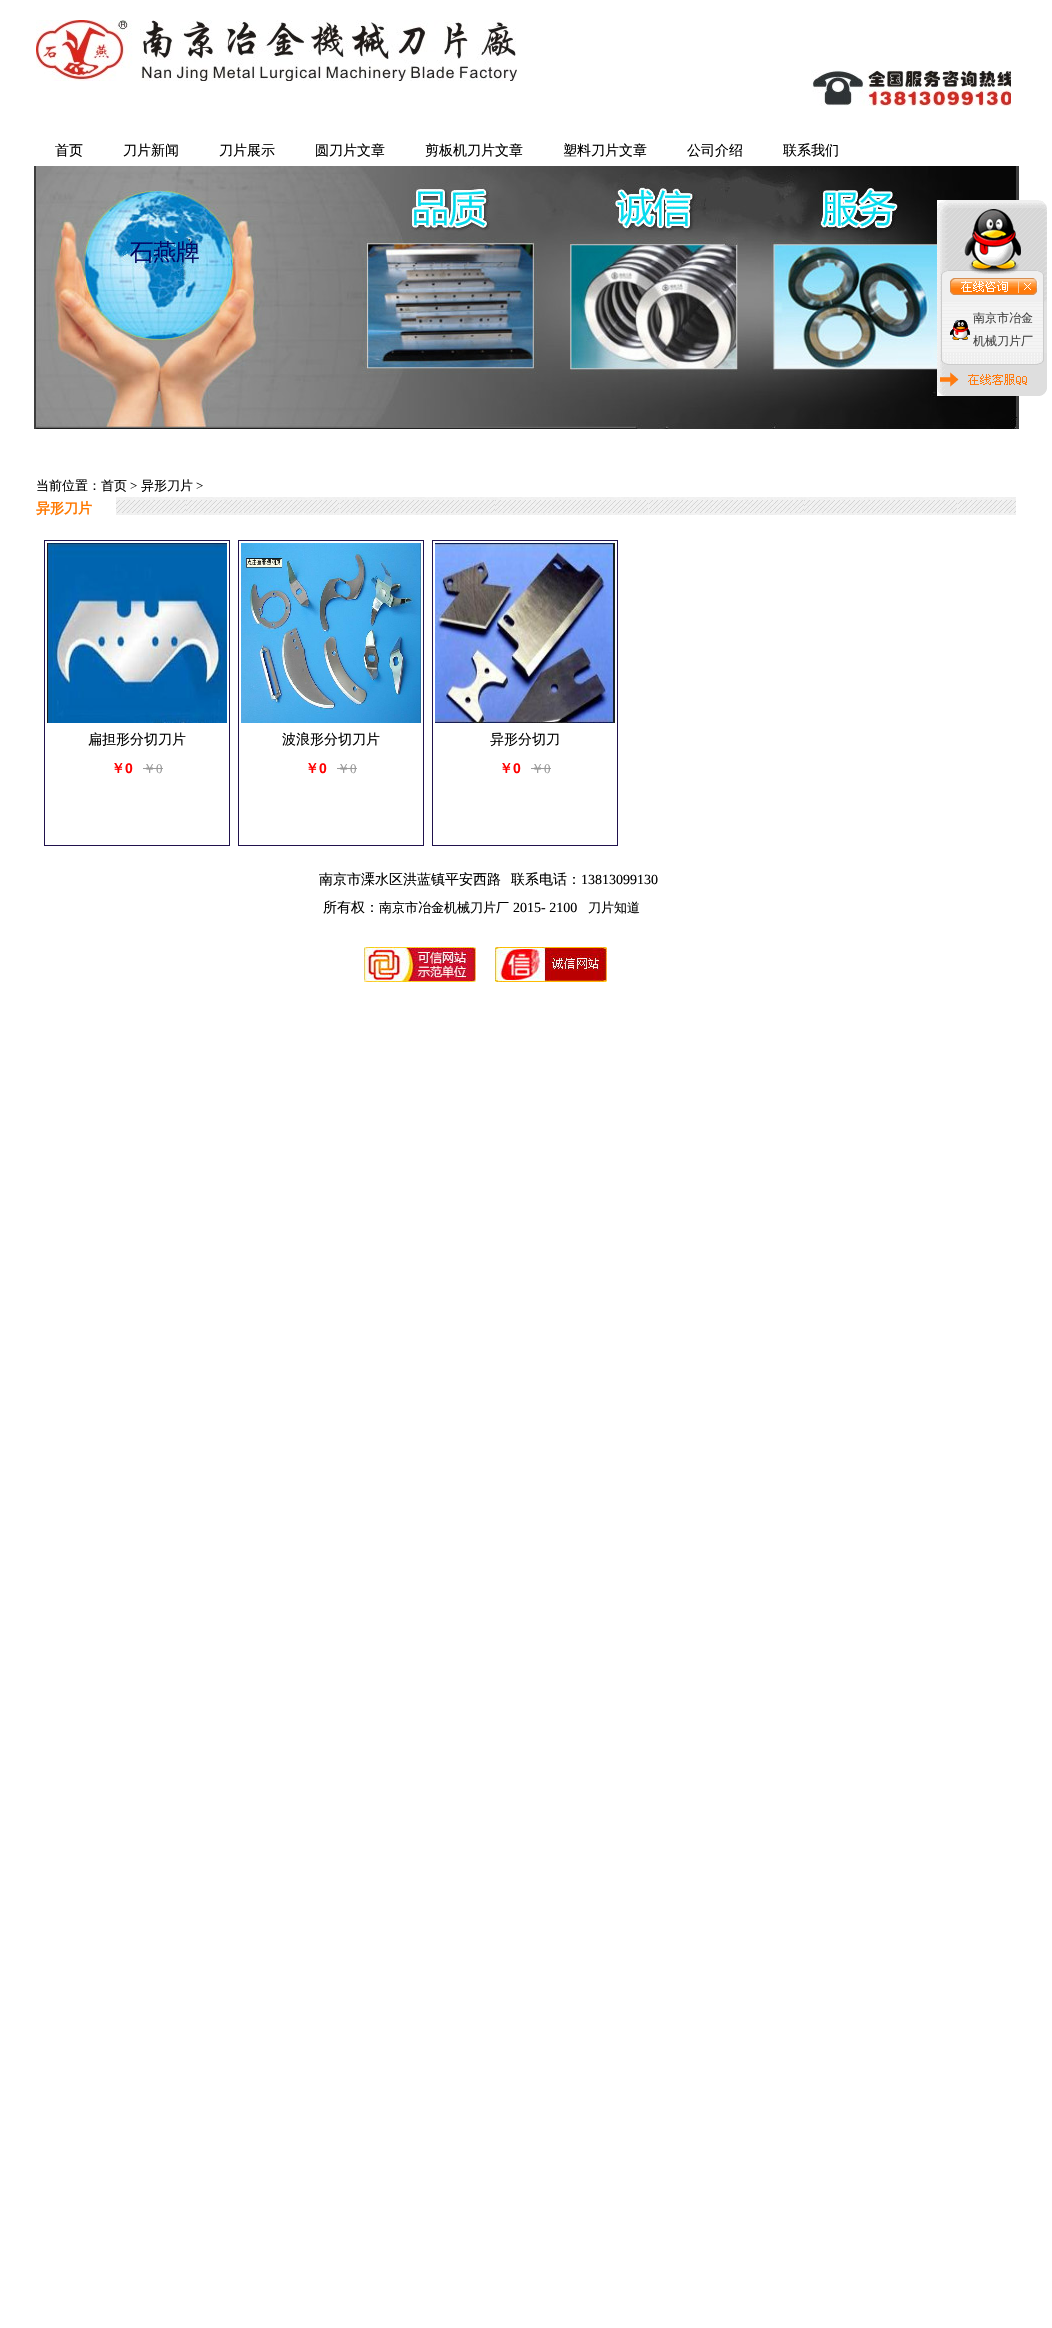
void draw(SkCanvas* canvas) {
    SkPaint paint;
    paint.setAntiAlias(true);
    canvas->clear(0xFFFFFFFF);
    canvas->drawImageRect(SkImages::DeferredFromEncodedData(SkData::MakeFromFileName("img1.png")), SkRect::MakeXYWH(36, 20, 481, 61), SkSamplingOptions());
    canvas->drawImageRect(SkImages::DeferredFromEncodedData(SkData::MakeFromFileName("img2.png")), SkRect::MakeXYWH(811, 70, 200, 36), SkSamplingOptions());
    SkFont font1(fontMgr->matchFamilyStyle("WenQuanYi Zen Hei", SkFontStyle(500, SkFontStyle::kNormal_Width, SkFontStyle::kUpright_Slant)), 14);
    font1.setSubpixel(true);
    paint.setColor(0xFF000000);
    canvas->drawString("首页", 55, 155, font1, paint);
    canvas->drawString("刀片新闻", 123, 155, font1, paint);
    canvas->drawString("刀片展示", 219, 155, font1, paint);
    canvas->drawString("圆刀片文章", 315, 155, font1, paint);
    canvas->drawString("剪板机刀片文章", 425, 155, font1, paint);
    canvas->drawString("塑料刀片文章", 563, 155, font1, paint);
    canvas->drawString("公司介绍", 687, 155, font1, paint);
    canvas->drawString("联系我们", 783, 155, font1, paint);
    canvas->drawImageRect(SkImages::DeferredFromEncodedData(SkData::MakeFromFileName("img3.png")), SkRect::MakeXYWH(34, 166, 985, 263), SkSamplingOptions());
    canvas->drawImageRect(SkImages::DeferredFromEncodedData(SkData::MakeFromFileName("img4.png")), SkRect::MakeXYWH(937, 200, 110, 102), SkSamplingOptions());
    canvas->drawImageRect(SkImages::DeferredFromEncodedData(SkData::MakeFromFileName("img5.png")), SkRect::MakeXYWH(937, 302, 110, 51), SkSamplingOptions());
    canvas->drawImageRect(SkImages::DeferredFromEncodedData(SkData::MakeFromFileName("img6.png")), SkRect::MakeXYWH(950, 320, 20, 20), SkSamplingOptions());
    SkFont font2(fontMgr->matchFamilyStyle("WenQuanYi Zen Hei", SkFontStyle(500, SkFontStyle::kNormal_Width, SkFontStyle::kUpright_Slant)), 12);
    font2.setSubpixel(true);
    paint.setColor(0xFF434343);
    canvas->drawString("南京市冶金", 973, 322, font2, paint);
    canvas->drawString("机械刀片厂", 973, 345, font2, paint);
    canvas->drawImageRect(SkImages::DeferredFromEncodedData(SkData::MakeFromFileName("img7.png")), SkRect::MakeXYWH(937, 353, 110, 43), SkSamplingOptions());
    SkFont font3(fontMgr->matchFamilyStyle("WenQuanYi Zen Hei", SkFontStyle(500, SkFontStyle::kNormal_Width, SkFontStyle::kUpright_Slant)), 13);
    font3.setSubpixel(true);
    paint.setColor(0xFF000000);
    canvas->drawString("当前位置：首页", 36, 490, font3, paint);
    SkFont font4(fontMgr->matchFamilyStyle("Liberation Serif", SkFontStyle::Normal()), 13);
    font4.setSubpixel(true);
    canvas->drawString(">", 130, 490, font4, paint);
    canvas->drawString("异形刀片", 141, 490, font3, paint);
    canvas->drawString(">", 196, 490, font4, paint);
    canvas->drawImageRect(SkImages::DeferredFromEncodedData(SkData::MakeFromFileName("img8.png")), SkRect::MakeXYWH(116, 497, 900, 18), SkSamplingOptions());
    SkFont font5(fontMgr->matchFamilyStyle("WenQuanYi Zen Hei", SkFontStyle::Bold()), 14);
    font5.setSubpixel(true);
    paint.setColor(0xFFFF7800);
    canvas->drawString("异形刀片", 36, 513, font5, paint);
    paint.setStyle(SkPaint::kStroke_Style);
    paint.setStrokeWidth(1);
    paint.setColor(0xFF20124D);
    canvas->drawRect(SkRect::MakeXYWH(44.5f, 540.5f, 185, 305), paint);
    canvas->drawImageRect(SkImages::DeferredFromEncodedData(SkData::MakeFromFileName("img9.png")), SkRect::MakeXYWH(47, 543, 180, 180), SkSamplingOptions());
    paint.setStyle(SkPaint::kFill_Style);
    paint.setColor(0xFF000000);
    canvas->drawString("扁担形分切刀片", 88, 744, font1, paint);
    paint.setColor(0xFFFF0000);
    canvas->drawString("￥", 111, 773, font5, paint);
    SkFont font6(fontMgr->matchFamilyStyle("Liberation Sans", SkFontStyle::Bold()), 14);
    font6.setSubpixel(true);
    canvas->drawString("0", 125, 773, font6, paint);
    paint.setColor(0xFF999999);
    canvas->drawString("￥", 143, 773, font3, paint);
    canvas->drawRect(SkRect::MakeXYWH(143, 768, 20, 1), paint);
    canvas->drawString("0", 156, 773, font4, paint);
    paint.setStyle(SkPaint::kStroke_Style);
    paint.setColor(0xFF20124D);
    canvas->drawRect(SkRect::MakeXYWH(238.5f, 540.5f, 185, 305), paint);
    canvas->drawImageRect(SkImages::DeferredFromEncodedData(SkData::MakeFromFileName("img10.png")), SkRect::MakeXYWH(241, 543, 180, 180), SkSamplingOptions());
    paint.setStyle(SkPaint::kFill_Style);
    paint.setColor(0xFF000000);
    canvas->drawString("波浪形分切刀片", 282, 744, font1, paint);
    paint.setColor(0xFFFF0000);
    canvas->drawString("￥", 305, 773, font5, paint);
    canvas->drawString("0", 319, 773, font6, paint);
    paint.setColor(0xFF999999);
    canvas->drawString("￥", 337, 773, font3, paint);
    canvas->drawRect(SkRect::MakeXYWH(337, 768, 20, 1), paint);
    canvas->drawString("0", 350, 773, font4, paint);
    paint.setStyle(SkPaint::kStroke_Style);
    paint.setColor(0xFF20124D);
    canvas->drawRect(SkRect::MakeXYWH(432.5f, 540.5f, 185, 305), paint);
    canvas->drawImageRect(SkImages::DeferredFromEncodedData(SkData::MakeFromFileName("img11.png")), SkRect::MakeXYWH(435, 543, 180, 180), SkSamplingOptions());
    paint.setStyle(SkPaint::kFill_Style);
    paint.setColor(0xFF000000);
    canvas->drawString("异形分切刀", 490, 744, font1, paint);
    paint.setColor(0xFFFF0000);
    canvas->drawString("￥", 499, 773, font5, paint);
    canvas->drawString("0", 513, 773, font6, paint);
    paint.setColor(0xFF999999);
    canvas->drawString("￥", 531, 773, font3, paint);
    canvas->drawRect(SkRect::MakeXYWH(531, 768, 20, 1), paint);
    canvas->drawString("0", 544, 773, font4, paint);
    paint.setColor(0xFF000000);
    canvas->drawString("南京市溧水区洪蓝镇平安西路", 319, 884, font1, paint);
    canvas->drawString("联系电话：", 511, 884, font1, paint);
    SkFont font7(fontMgr->matchFamilyStyle("Liberation Serif", SkFontStyle::Normal()), 14);
    font7.setSubpixel(true);
    canvas->drawString("13813099130", 581, 884, font7, paint);
    canvas->drawString("所有权：", 323, 912, font1, paint);
    canvas->drawString("南京市冶金机械刀片厂", 379, 912, font3, paint);
    canvas->drawString("2015- 2100", 513, 912, font7, paint);
    canvas->drawString("刀片知道", 588, 912, font3, paint);
    canvas->drawImageRect(SkImages::DeferredFromEncodedData(SkData::MakeFromFileName("img12.png")), SkRect::MakeXYWH(364, 947, 112, 35), SkSamplingOptions());
    canvas->drawImageRect(SkImages::DeferredFromEncodedData(SkData::MakeFromFileName("img13.png")), SkRect::MakeXYWH(495, 947, 112, 35), SkSamplingOptions());
}
